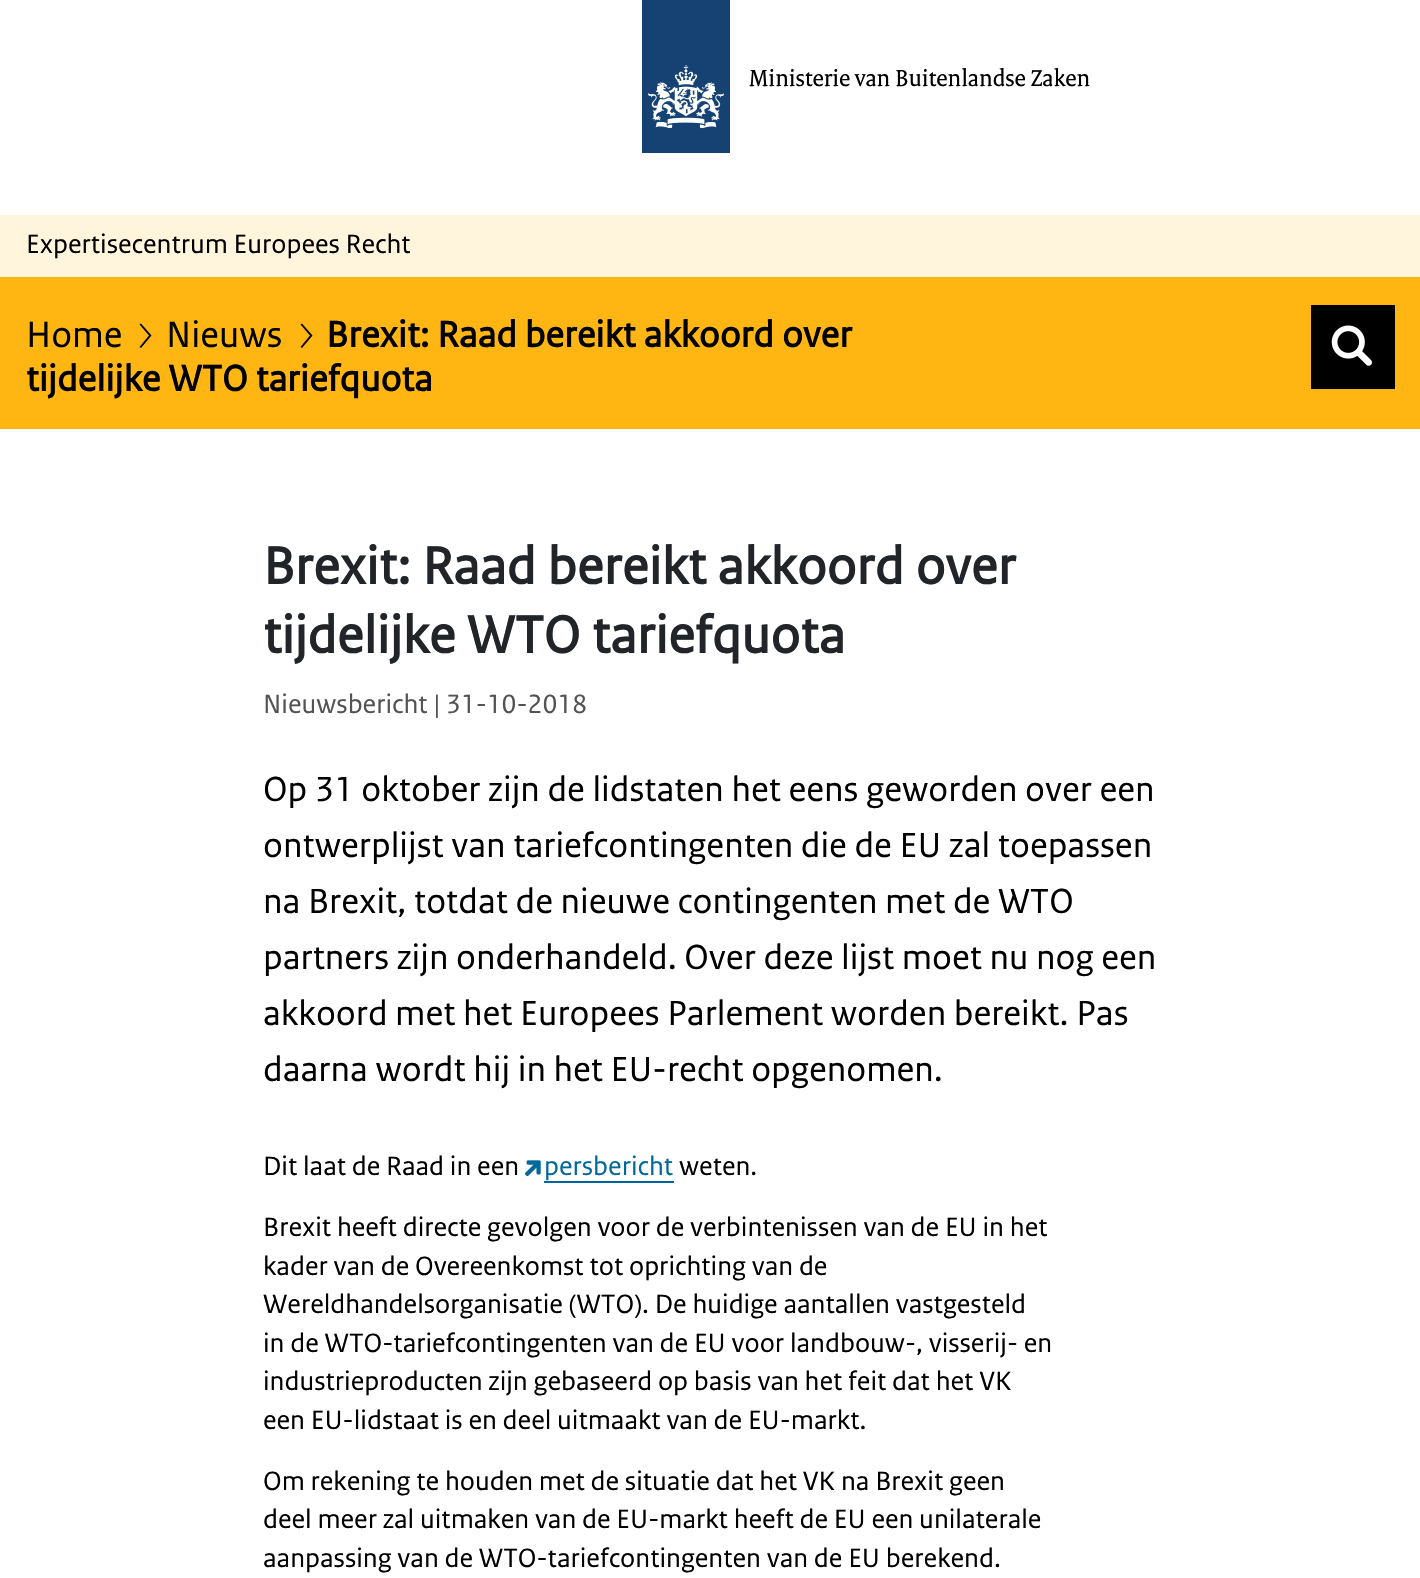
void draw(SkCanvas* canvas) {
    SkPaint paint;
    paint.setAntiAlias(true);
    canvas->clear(0xFFFFFFFF);
    canvas->drawImageRect(SkImages::DeferredFromEncodedData(SkData::MakeFromFileName("img1.png")), SkRect::MakeXYWH(642, 0, 88, 153), SkSamplingOptions());
    SkFont font1(fontMgr->matchFamilyStyle("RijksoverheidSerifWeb", SkFontStyle::Normal()), 24.9f);
    font1.setSubpixel(true);
    paint.setColor(0xFF000000);
    canvas->drawString("Ministerie van Buitenlandse Zaken", 749, 86, font1, paint);
    paint.setColor(0xFFFFF4DC);
    canvas->drawRect(SkRect::MakeXYWH(0, 215, 1420, 62), paint);
    SkFont font2(fontMgr->matchFamilyStyle("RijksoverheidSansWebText", SkFontStyle::Normal()), 28);
    font2.setSubpixel(true);
    paint.setColor(0xFF000000);
    canvas->drawString("Expertisecentrum Europees Recht", 26, 253, font2, paint);
    paint.setColor(0xFFFFB612);
    canvas->drawRect(SkRect::MakeXYWH(0, 277, 1420, 152), paint);
    SkFont font3(fontMgr->matchFamilyStyle("RijksoverheidSansWebText", SkFontStyle::Normal()), 38.5f);
    font3.setSubpixel(true);
    paint.setColor(0xFF000000);
    canvas->drawString("Home", 26, 347, font3, paint);
    canvas->drawPath(SkPathBuilder().moveTo(141, 348).lineTo(139.5f, 347).lineTo(149, 335.5f).lineTo(139.5f, 324.5f).lineTo(141, 323.5f).lineTo(151.5f, 335.5f).close().detach(), paint);
    canvas->drawString("Nieuws", 166, 347, font3, paint);
    canvas->drawPath(SkPathBuilder().moveTo(302, 348).lineTo(300.5f, 347).lineTo(310, 335.5f).lineTo(300.5f, 324.5f).lineTo(302, 323.5f).lineTo(312.5f, 335.5f).close().detach(), paint);
    SkFont font4(fontMgr->matchFamilyStyle("RijksoverheidSansWebText", SkFontStyle::Bold()), 38.5f);
    font4.setSubpixel(true);
    canvas->drawString("Brexit: Raad bereikt akkoord over", 326, 347, font4, paint);
    canvas->drawString("tijdelijke WTO tariefquota", 26, 391, font4, paint);
    canvas->drawRect(SkRect::MakeXYWH(1311, 305, 84, 84), paint);
    canvas->drawImageRect(SkImages::DeferredFromEncodedData(SkData::MakeFromFileName("img2.png")), SkRect::MakeXYWH(1331, 325, 41, 41), SkSamplingOptions());
    SkFont font5(fontMgr->matchFamilyStyle("RijksoverheidSansWebText", SkFontStyle::Bold()), 55.1f);
    font5.setSubpixel(true);
    paint.setColor(0xFF212529);
    canvas->drawString("Brexit: Raad bereikt akkoord over", 263, 584, font5, paint);
    canvas->drawString("tijdelijke WTO tariefquota", 263, 653, font5, paint);
    paint.setColor(0xFF535353);
    canvas->drawString("Nieuwsbericht | 31-10-2018", 263, 713, font2, paint);
    SkFont font6(fontMgr->matchFamilyStyle("RijksoverheidSansWebText", SkFontStyle::Normal()), 36.75f);
    font6.setSubpixel(true);
    paint.setColor(0xFF000000);
    canvas->drawString("Op 31 oktober zijn de lidstaten het eens geworden over een", 263, 801, font6, paint);
    canvas->drawString("ontwerplijst van tariefcontingenten die de EU zal toepassen", 263, 857, font6, paint);
    canvas->drawString("na Brexit, totdat de nieuwe contingenten met de WTO", 263, 913, font6, paint);
    canvas->drawString("partners zijn onderhandeld. Over deze lijst moet nu nog een", 263, 969, font6, paint);
    canvas->drawString("akkoord met het Europees Parlement worden bereikt. Pas", 263, 1025, font6, paint);
    canvas->drawString("daarna wordt hij in het EU-recht opgenomen.", 263, 1081, font6, paint);
    canvas->drawString("Dit laat de Raad in een", 263, 1175, font2, paint);
    canvas->drawImageRect(SkImages::DeferredFromEncodedData(SkData::MakeFromFileName("img3.png")), SkRect::MakeXYWH(525, 1160, 16, 17), SkSamplingOptions());
    paint.setColor(0xFF01689B);
    canvas->drawString("persbericht", 544, 1175, font2, paint);
    canvas->drawRect(SkRect::MakeXYWH(544, 1181, 130, 2), paint);
    paint.setColor(0xFF000000);
    canvas->drawString("weten.", 679, 1175, font2, paint);
    canvas->drawString("Brexit heeft directe gevolgen voor de verbintenissen van de EU in het", 263, 1236, font2, paint);
    canvas->drawString("kader van de Overeenkomst tot oprichting van de", 263, 1275, font2, paint);
    canvas->drawString("Wereldhandelsorganisatie (WTO). De huidige aantallen vastgesteld", 263, 1313, font2, paint);
    canvas->drawString("in de WTO-tariefcontingenten van de EU voor landbouw-, visserij- en", 263, 1352, font2, paint);
    canvas->drawString("industrieproducten zijn gebaseerd op basis van het feit dat het VK", 263, 1390, font2, paint);
    canvas->drawString("een EU-lidstaat is en deel uitmaakt van de EU-markt.", 263, 1429, font2, paint);
    canvas->drawString("Om rekening te houden met de situatie dat het VK na Brexit geen", 263, 1490, font2, paint);
    canvas->drawString("deel meer zal uitmaken van de EU-markt heeft de EU een unilaterale", 263, 1528, font2, paint);
    canvas->drawString("aanpassing van de WTO-tariefcontingenten van de EU berekend.", 263, 1567, font2, paint);
}
